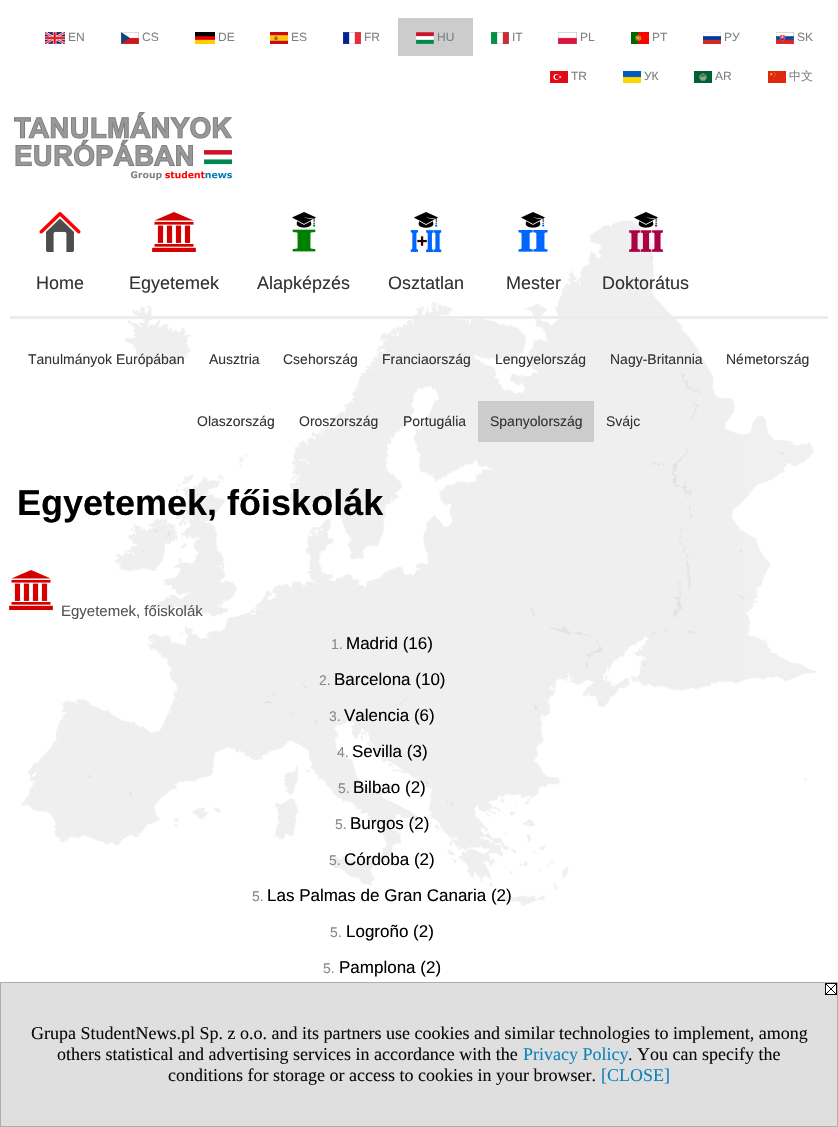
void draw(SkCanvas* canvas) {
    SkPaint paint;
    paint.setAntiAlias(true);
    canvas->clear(0xFFFFFFFF);
    canvas->drawImageRect(SkImages::DeferredFromEncodedData(SkData::MakeFromFileName("img1.png")), SkRect::MakeXYWH(21, 220, 795, 686), SkSamplingOptions());
    canvas->drawImageRect(SkImages::DeferredFromEncodedData(SkData::MakeFromFileName("img2.png")), SkRect::MakeXYWH(45, 32, 20, 12), SkSamplingOptions());
    SkFont font1(fontMgr->matchFamilyStyle("Liberation Sans", SkFontStyle::Normal()), 12);
    font1.setSubpixel(true);
    paint.setColor(0xFF808080);
    canvas->drawString("EN", 68, 41, font1, paint);
    canvas->drawImageRect(SkImages::DeferredFromEncodedData(SkData::MakeFromFileName("img3.png")), SkRect::MakeXYWH(121, 32, 18, 12), SkSamplingOptions());
    canvas->drawString("CS", 142, 41, font1, paint);
    canvas->drawImageRect(SkImages::DeferredFromEncodedData(SkData::MakeFromFileName("img4.png")), SkRect::MakeXYWH(195, 32, 20, 12), SkSamplingOptions());
    canvas->drawString("DE", 218, 41, font1, paint);
    canvas->drawImageRect(SkImages::DeferredFromEncodedData(SkData::MakeFromFileName("img5.png")), SkRect::MakeXYWH(270, 32, 18, 12), SkSamplingOptions());
    canvas->drawString("ES", 291, 41, font1, paint);
    canvas->drawImageRect(SkImages::DeferredFromEncodedData(SkData::MakeFromFileName("img6.png")), SkRect::MakeXYWH(343, 32, 18, 12), SkSamplingOptions());
    canvas->drawString("FR", 364, 41, font1, paint);
    paint.setColor(0xFFCCCCCC);
    canvas->drawRect(SkRect::MakeXYWH(398, 18, 75, 38), paint);
    canvas->drawImageRect(SkImages::DeferredFromEncodedData(SkData::MakeFromFileName("img7.png")), SkRect::MakeXYWH(416, 32, 18, 12), SkSamplingOptions());
    paint.setColor(0xFF808080);
    canvas->drawString("HU", 437, 41, font1, paint);
    canvas->drawImageRect(SkImages::DeferredFromEncodedData(SkData::MakeFromFileName("img8.png")), SkRect::MakeXYWH(491, 32, 18, 12), SkSamplingOptions());
    canvas->drawString("IT", 512, 41, font1, paint);
    canvas->drawImageRect(SkImages::DeferredFromEncodedData(SkData::MakeFromFileName("img9.png")), SkRect::MakeXYWH(558, 32, 19, 12), SkSamplingOptions());
    canvas->drawString("PL", 580, 41, font1, paint);
    canvas->drawImageRect(SkImages::DeferredFromEncodedData(SkData::MakeFromFileName("img10.png")), SkRect::MakeXYWH(631, 32, 18, 12), SkSamplingOptions());
    canvas->drawString("PT", 652, 41, font1, paint);
    canvas->drawImageRect(SkImages::DeferredFromEncodedData(SkData::MakeFromFileName("img11.png")), SkRect::MakeXYWH(703, 32, 18, 12), SkSamplingOptions());
    canvas->drawString("РУ", 724, 41, font1, paint);
    canvas->drawImageRect(SkImages::DeferredFromEncodedData(SkData::MakeFromFileName("img12.png")), SkRect::MakeXYWH(776, 32, 18, 12), SkSamplingOptions());
    canvas->drawString("SK", 797, 41, font1, paint);
    canvas->drawImageRect(SkImages::DeferredFromEncodedData(SkData::MakeFromFileName("img13.png")), SkRect::MakeXYWH(550, 71, 18, 12), SkSamplingOptions());
    canvas->drawString("TR", 571, 80, font1, paint);
    canvas->drawImageRect(SkImages::DeferredFromEncodedData(SkData::MakeFromFileName("img14.png")), SkRect::MakeXYWH(623, 71, 18, 12), SkSamplingOptions());
    canvas->drawString("УК", 644, 80, font1, paint);
    canvas->drawImageRect(SkImages::DeferredFromEncodedData(SkData::MakeFromFileName("img15.png")), SkRect::MakeXYWH(694, 71, 18, 12), SkSamplingOptions());
    canvas->drawString("AR", 715, 80, font1, paint);
    canvas->drawImageRect(SkImages::DeferredFromEncodedData(SkData::MakeFromFileName("img16.png")), SkRect::MakeXYWH(768, 71, 18, 12), SkSamplingOptions());
    SkFont font2(fontMgr->matchFamilyStyle("WenQuanYi Zen Hei", SkFontStyle(500, SkFontStyle::kNormal_Width, SkFontStyle::kUpright_Slant)), 12);
    font2.setSubpixel(true);
    canvas->drawString("中文", 789, 80, font2, paint);
    canvas->drawImageRect(SkImages::DeferredFromEncodedData(SkData::MakeFromFileName("img17.png")), SkRect::MakeXYWH(14, 112, 218, 68), SkSamplingOptions());
    canvas->drawImageRect(SkImages::DeferredFromEncodedData(SkData::MakeFromFileName("img18.png")), SkRect::MakeXYWH(39, 212, 42, 40), SkSamplingOptions());
    SkFont font3(fontMgr->matchFamilyStyle("Liberation Sans", SkFontStyle::Normal()), 18);
    font3.setSubpixel(true);
    paint.setColor(0xFF333333);
    canvas->drawString("Home", 36, 289, font3, paint);
    canvas->drawImageRect(SkImages::DeferredFromEncodedData(SkData::MakeFromFileName("img19.png")), SkRect::MakeXYWH(152, 212, 44, 40), SkSamplingOptions());
    canvas->drawString("Egyetemek", 129, 289, font3, paint);
    canvas->drawImageRect(SkImages::DeferredFromEncodedData(SkData::MakeFromFileName("img20.png")), SkRect::MakeXYWH(292, 212, 24, 40), SkSamplingOptions());
    canvas->drawString("Alapképzés", 257, 289, font3, paint);
    canvas->drawImageRect(SkImages::DeferredFromEncodedData(SkData::MakeFromFileName("img21.png")), SkRect::MakeXYWH(410, 212, 32, 41), SkSamplingOptions());
    canvas->drawString("Osztatlan", 388, 289, font3, paint);
    canvas->drawImageRect(SkImages::DeferredFromEncodedData(SkData::MakeFromFileName("img22.png")), SkRect::MakeXYWH(518, 212, 30, 40), SkSamplingOptions());
    canvas->drawString("Mester", 506, 289, font3, paint);
    canvas->drawImageRect(SkImages::DeferredFromEncodedData(SkData::MakeFromFileName("img23.png")), SkRect::MakeXYWH(629, 212, 34, 40), SkSamplingOptions());
    canvas->drawString("Doktorátus", 602, 289, font3, paint);
    paint.setColor(0xFFECECEC);
    canvas->drawRect(SkRect::MakeXYWH(10, 316, 818, 3), paint);
    SkFont font4(fontMgr->matchFamilyStyle("Liberation Sans", SkFontStyle::Normal()), 14);
    font4.setSubpixel(true);
    paint.setColor(0xFF333333);
    canvas->drawString("Tanulmányok Európában", 28, 364, font4, paint);
    canvas->drawString("Ausztria", 209, 364, font4, paint);
    canvas->drawString("Csehország", 283, 364, font4, paint);
    canvas->drawString("Franciaország", 382, 364, font4, paint);
    canvas->drawString("Lengyelország", 495, 364, font4, paint);
    canvas->drawString("Nagy-Britannia", 610, 364, font4, paint);
    canvas->drawString("Németország", 726, 364, font4, paint);
    canvas->drawString("Olaszország", 197, 426, font4, paint);
    canvas->drawString("Oroszország", 299, 426, font4, paint);
    canvas->drawString("Portugália", 403, 426, font4, paint);
    paint.setColor(0xFFCCCCCC);
    canvas->drawRect(SkRect::MakeXYWH(478, 401, 116, 41), paint);
    paint.setColor(0xFF333333);
    canvas->drawString("Spanyolország", 490, 426, font4, paint);
    canvas->drawString("Svájc", 606, 426, font4, paint);
    SkFont font5(fontMgr->matchFamilyStyle("Liberation Sans", SkFontStyle::Bold()), 36);
    font5.setSubpixel(true);
    paint.setColor(0xFF000000);
    canvas->drawString("Egyetemek, főiskolák", 17, 515, font5, paint);
    canvas->drawImageRect(SkImages::DeferredFromEncodedData(SkData::MakeFromFileName("img19.png")), SkRect::MakeXYWH(9, 570, 44, 40), SkSamplingOptions());
    SkFont font6(fontMgr->matchFamilyStyle("Liberation Sans", SkFontStyle::Normal()), 15);
    font6.setSubpixel(true);
    paint.setColor(0xFF555555);
    canvas->drawString("Egyetemek, főiskolák", 61, 616, font6, paint);
    paint.setColor(0xFF888888);
    canvas->drawString("1.", 331, 649, font4, paint);
    SkFont font7(fontMgr->matchFamilyStyle("Liberation Sans", SkFontStyle::Normal()), 17);
    font7.setSubpixel(true);
    paint.setColor(0xFF000000);
    canvas->drawString("Madrid (16)", 346, 649, font7, paint);
    paint.setColor(0xFF888888);
    canvas->drawString("2.", 319, 685, font4, paint);
    paint.setColor(0xFF000000);
    canvas->drawString("Barcelona (10)", 334, 685, font7, paint);
    paint.setColor(0xFF888888);
    canvas->drawString("3.", 329, 721, font4, paint);
    paint.setColor(0xFF000000);
    canvas->drawString("Valencia (6)", 344, 721, font7, paint);
    paint.setColor(0xFF888888);
    canvas->drawString("4.", 337, 757, font4, paint);
    paint.setColor(0xFF000000);
    canvas->drawString("Sevilla (3)", 352, 757, font7, paint);
    paint.setColor(0xFF888888);
    canvas->drawString("5.", 338, 793, font4, paint);
    paint.setColor(0xFF000000);
    canvas->drawString("Bilbao (2)", 353, 793, font7, paint);
    paint.setColor(0xFF888888);
    canvas->drawString("5.", 335, 829, font4, paint);
    paint.setColor(0xFF000000);
    canvas->drawString("Burgos (2)", 350, 829, font7, paint);
    paint.setColor(0xFF888888);
    canvas->drawString("5.", 329, 865, font4, paint);
    paint.setColor(0xFF000000);
    canvas->drawString("Córdoba (2)", 344, 865, font7, paint);
    paint.setColor(0xFF888888);
    canvas->drawString("5.", 252, 901, font4, paint);
    paint.setColor(0xFF000000);
    canvas->drawString("Las Palmas de Gran Canaria (2)", 267, 901, font7, paint);
    paint.setColor(0xFF888888);
    canvas->drawString("5.", 330, 937, font4, paint);
    paint.setColor(0xFF000000);
    canvas->drawString("Logroño (2)", 346, 937, font7, paint);
    paint.setColor(0xFF888888);
    canvas->drawString("5.", 323, 973, font4, paint);
    paint.setColor(0xFF000000);
    canvas->drawString("Pamplona (2)", 339, 973, font7, paint);
    paint.setColor(0xFFDFDFDF);
    canvas->drawRect(SkRect::MakeXYWH(0.5f, 982.5f, 837, 144), paint);
    paint.setStyle(SkPaint::kStroke_Style);
    paint.setStrokeWidth(1);
    paint.setColor(0xFFAEAEAE);
    canvas->drawRect(SkRect::MakeXYWH(0.5f, 982.5f, 837, 144), paint);
    canvas->drawImageRect(SkImages::DeferredFromEncodedData(SkData::MakeFromFileName("img24.png")), SkRect::MakeXYWH(825, 983, 12, 12), SkSamplingOptions());
    SkFont font8(fontMgr->matchFamilyStyle("Liberation Serif", SkFontStyle::Normal()), 18);
    font8.setSubpixel(true);
    paint.setStyle(SkPaint::kFill_Style);
    paint.setColor(0xFF0B0B0B);
    canvas->drawString("Grupa StudentNews.pl Sp. z o.o. and its partners use cookies and similar technologies to implement, among", 31, 1039, font8, paint);
    canvas->drawString("others statistical and advertising services in accordance with the", 57, 1060, font8, paint);
    paint.setColor(0xFF0D82BD);
    canvas->drawString("Privacy Policy", 523, 1060, font8, paint);
    paint.setColor(0xFF0B0B0B);
    canvas->drawString(". You can specify the", 628, 1060, font8, paint);
    canvas->drawString("conditions for storage or access to cookies in your browser.", 168, 1081, font8, paint);
    paint.setColor(0xFF0D82BD);
    canvas->drawString("[CLOSE]", 601, 1081, font8, paint);
}
